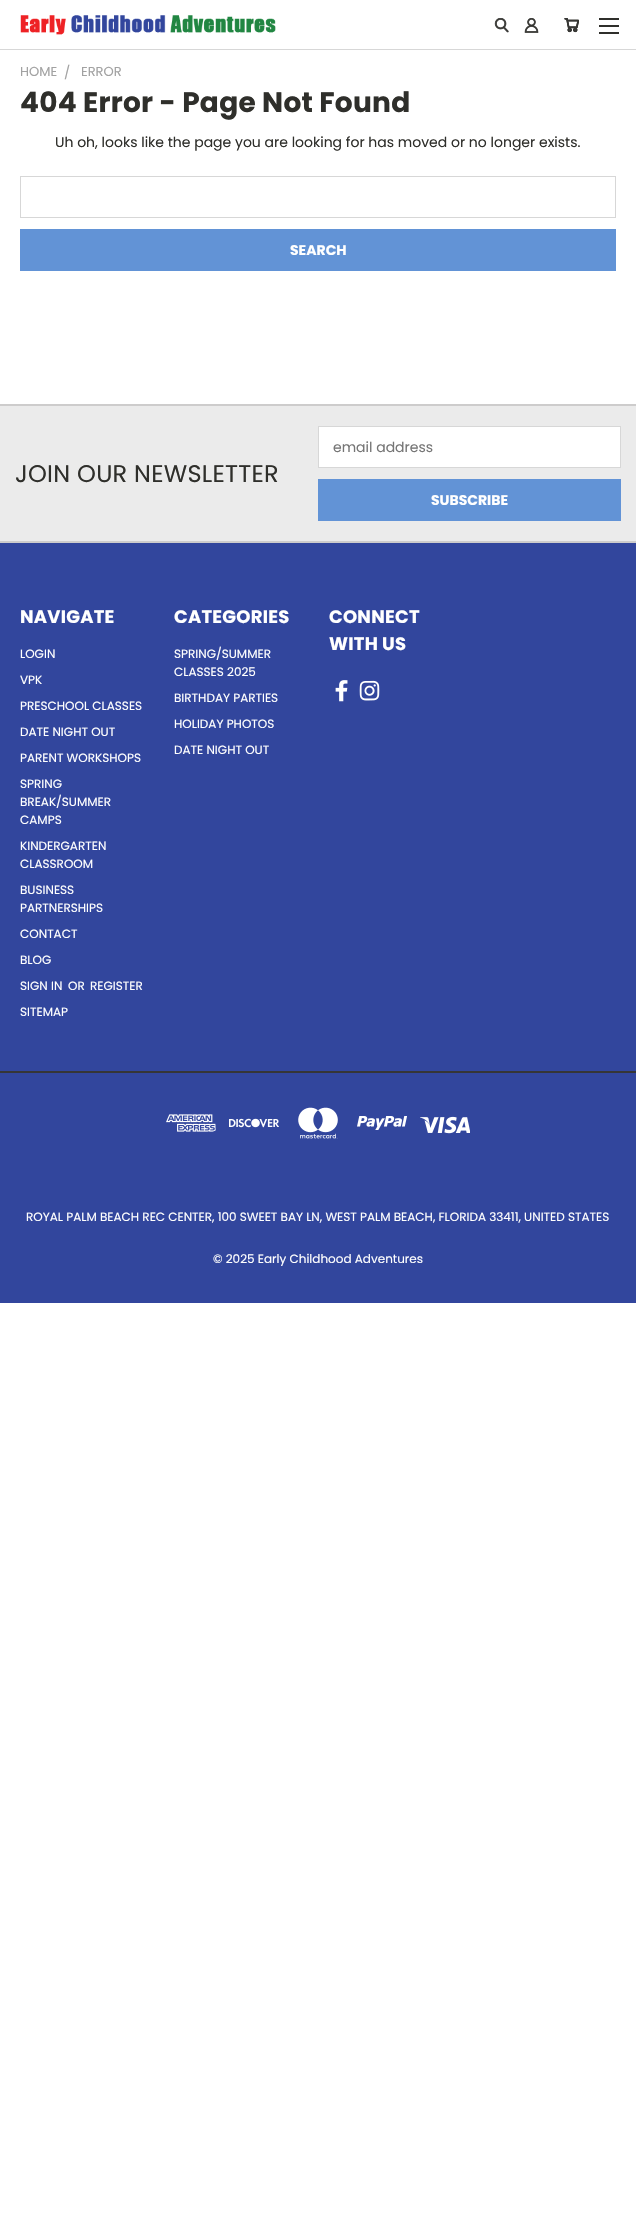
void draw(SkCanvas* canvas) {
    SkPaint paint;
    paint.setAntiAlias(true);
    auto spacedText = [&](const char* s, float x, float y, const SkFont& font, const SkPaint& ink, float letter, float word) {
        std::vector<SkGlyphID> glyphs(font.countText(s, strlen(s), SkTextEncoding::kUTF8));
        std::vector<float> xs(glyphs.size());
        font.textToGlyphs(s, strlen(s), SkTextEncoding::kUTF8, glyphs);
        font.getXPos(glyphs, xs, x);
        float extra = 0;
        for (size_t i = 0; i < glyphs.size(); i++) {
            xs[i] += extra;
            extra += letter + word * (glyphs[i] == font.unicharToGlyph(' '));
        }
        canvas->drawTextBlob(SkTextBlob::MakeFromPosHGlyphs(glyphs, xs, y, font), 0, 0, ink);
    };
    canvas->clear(0xFFFFFFFF);
    paint.setColor(0xFFD7D7D7);
    canvas->drawRect(SkRect::MakeXYWH(0, 49, 636, 1), paint);
    canvas->drawImageRect(SkImages::DeferredFromEncodedData(SkData::MakeFromFileName("img1.png")), SkRect::MakeXYWH(20, 15, 256, 20), SkSamplingOptions());
    canvas->drawImageRect(SkImages::DeferredFromEncodedData(SkData::MakeFromFileName("img2.png")), SkRect::MakeXYWH(494, 18, 15, 15), SkSamplingOptions());
    canvas->drawImageRect(SkImages::DeferredFromEncodedData(SkData::MakeFromFileName("img3.png")), SkRect::MakeXYWH(524, 18, 15, 15), SkSamplingOptions());
    canvas->drawImageRect(SkImages::DeferredFromEncodedData(SkData::MakeFromFileName("img4.png")), SkRect::MakeXYWH(564, 18, 15, 15), SkSamplingOptions());
    paint.setColor(0xFF2F2F2B);
    canvas->drawRect(SkRect::MakeXYWH(599, 25, 20, 2), paint);
    canvas->drawRect(SkRect::MakeXYWH(599, 18, 20, 2), paint);
    canvas->drawRect(SkRect::MakeXYWH(599, 32, 20, 2), paint);
    SkFont font1(fontMgr->matchFamilyStyle("Poppins", SkFontStyle::Normal()), 13);
    font1.setSubpixel(true);
    paint.setColor(0xFFA2A2A2);
    canvas->drawString("HOME", 20, 76, font1, paint);
    canvas->drawString("/", 64, 77, font1, paint);
    canvas->drawString("ERROR", 81, 76, font1, paint);
    SkFont font2(fontMgr->matchFamilyStyle("Poppins", SkFontStyle::Bold()), 28);
    font2.setSubpixel(true);
    paint.setColor(0xFF2F2F2B);
    spacedText("404 Error - Page Not Found", 20, 112, font2, paint, 0.25f, 0);
    SkFont font3(fontMgr->matchFamilyStyle("Poppins", SkFontStyle::Normal()), 14);
    font3.setSubpixel(true);
    canvas->drawString("Uh oh, looks like the page you are looking for has moved or no longer exists.", 55, 147, font3, paint);
    paint.setStyle(SkPaint::kStroke_Style);
    paint.setStrokeWidth(1);
    paint.setColor(0xFFD7D7D7);
    canvas->drawRect(SkRect::MakeXYWH(20.5f, 176.5f, 595, 41), paint);
    paint.setStyle(SkPaint::kFill_Style);
    paint.setColor(0xFF6293D6);
    canvas->drawRect(SkRect::MakeXYWH(20, 229, 596, 42), paint);
    SkFont font4(fontMgr->matchFamilyStyle("Poppins", SkFontStyle::Bold()), 14);
    font4.setSubpixel(true);
    paint.setColor(0xFFFFFFFF);
    canvas->drawString("SEARCH", 290, 255, font4, paint);
    paint.setColor(0xFFEBEBEB);
    canvas->drawRect(SkRect::MakeXYWH(0, 406, 636, 135), paint);
    paint.setColor(0xFFCDCCCC);
    canvas->drawRect(SkRect::MakeXYWH(0, 404, 636, 2), paint);
    SkFont font5(fontMgr->matchFamilyStyle("Poppins", SkFontStyle::Normal()), 24);
    font5.setSubpixel(true);
    paint.setColor(0xFF2F2F2B);
    spacedText("JOIN OUR NEWSLETTER", 15, 482, font5, paint, 0.25f, 0);
    paint.setColor(0xFFFFFFFF);
    canvas->drawRect(SkRect::MakeXYWH(318.5f, 426.5f, 302, 41), paint);
    paint.setStyle(SkPaint::kStroke_Style);
    paint.setColor(0xFFD7D7D7);
    canvas->drawRect(SkRect::MakeXYWH(318.5f, 426.5f, 302, 41), paint);
    paint.setStyle(SkPaint::kFill_Style);
    paint.setColor(0xFF757575);
    canvas->drawString("email address", 333, 452, font3, paint);
    paint.setColor(0xFF6293D6);
    canvas->drawRect(SkRect::MakeXYWH(318, 479, 303, 42), paint);
    paint.setColor(0xFFFFFFFF);
    canvas->drawString("SUBSCRIBE", 431, 505, font4, paint);
    paint.setColor(0xFF32469D);
    canvas->drawRect(SkRect::MakeXYWH(0, 543, 636, 760), paint);
    paint.setColor(0xFFCDCCCC);
    canvas->drawRect(SkRect::MakeXYWH(0, 541, 636, 2), paint);
    SkFont font6(fontMgr->matchFamilyStyle("Poppins", SkFontStyle::Bold()), 18);
    font6.setSubpixel(true);
    paint.setColor(0xFFFFFFFF);
    spacedText("NAVIGATE", 20, 623, font6, paint, 0.25f, 0);
    SkFont font7(fontMgr->matchFamilyStyle("Poppins", SkFontStyle::Normal()), 12);
    font7.setSubpixel(true);
    canvas->drawString("LOGIN", 20, 658, font7, paint);
    canvas->drawString("VPK", 20, 684, font7, paint);
    canvas->drawString("PRESCHOOL CLASSES", 20, 710, font7, paint);
    canvas->drawString("DATE NIGHT OUT", 20, 736, font7, paint);
    canvas->drawString("PARENT WORKSHOPS", 20, 762, font7, paint);
    canvas->drawString("SPRING", 20, 788, font7, paint);
    canvas->drawString("BREAK/SUMMER", 20, 806, font7, paint);
    canvas->drawString("CAMPS", 20, 824, font7, paint);
    canvas->drawString("KINDERGARTEN", 20, 850, font7, paint);
    canvas->drawString("CLASSROOM", 20, 868, font7, paint);
    canvas->drawString("BUSINESS", 20, 894, font7, paint);
    canvas->drawString("PARTNERSHIPS", 20, 912, font7, paint);
    canvas->drawString("CONTACT", 20, 938, font7, paint);
    canvas->drawString("BLOG", 20, 964, font7, paint);
    canvas->drawString("SIGN IN", 20, 990, font7, paint);
    canvas->drawString("OR", 68, 990, font7, paint);
    canvas->drawString("REGISTER", 90, 990, font7, paint);
    canvas->drawString("SITEMAP", 20, 1016, font7, paint);
    spacedText("CATEGORIES", 174, 623, font6, paint, 0.25f, 0);
    canvas->drawString("SPRING/SUMMER", 174, 658, font7, paint);
    canvas->drawString("CLASSES 2025", 174, 676, font7, paint);
    canvas->drawString("BIRTHDAY PARTIES", 174, 702, font7, paint);
    canvas->drawString("HOLIDAY PHOTOS", 174, 728, font7, paint);
    canvas->drawString("DATE NIGHT OUT", 174, 754, font7, paint);
    spacedText("CONNECT", 329, 623, font6, paint, 0.25f, 0);
    spacedText("WITH US", 329, 650, font6, paint, 0.25f, 0);
    canvas->drawImageRect(SkImages::DeferredFromEncodedData(SkData::MakeFromFileName("img5.png")), SkRect::MakeXYWH(335, 680, 13, 22), SkSamplingOptions());
    canvas->drawImageRect(SkImages::DeferredFromEncodedData(SkData::MakeFromFileName("img6.png")), SkRect::MakeXYWH(359, 680, 21, 21), SkSamplingOptions());
    paint.setColor(0xFF363636);
    canvas->drawRect(SkRect::MakeXYWH(0, 1071, 636, 2), paint);
    canvas->drawImageRect(SkImages::DeferredFromEncodedData(SkData::MakeFromFileName("img7.png")), SkRect::MakeXYWH(166, 1114, 50, 18), SkSamplingOptions());
    canvas->drawImageRect(SkImages::DeferredFromEncodedData(SkData::MakeFromFileName("img8.png")), SkRect::MakeXYWH(229, 1118, 50, 10), SkSamplingOptions());
    canvas->drawImageRect(SkImages::DeferredFromEncodedData(SkData::MakeFromFileName("img9.png")), SkRect::MakeXYWH(298, 1107, 40, 32), SkSamplingOptions());
    canvas->drawImageRect(SkImages::DeferredFromEncodedData(SkData::MakeFromFileName("img10.png")), SkRect::MakeXYWH(357, 1116, 50, 14), SkSamplingOptions());
    canvas->drawImageRect(SkImages::DeferredFromEncodedData(SkData::MakeFromFileName("img11.png")), SkRect::MakeXYWH(420, 1116, 50, 18), SkSamplingOptions());
    paint.setColor(0xFFFFFFFF);
    canvas->drawString("ROYAL PALM BEACH REC CENTER, 100 SWEET BAY LN, WEST PALM BEACH, FLORIDA 33411, UNITED STATES", 26, 1221, font7, paint);
    canvas->drawString("© 2025 Early Childhood Adventures", 213, 1263, font7, paint);
}
